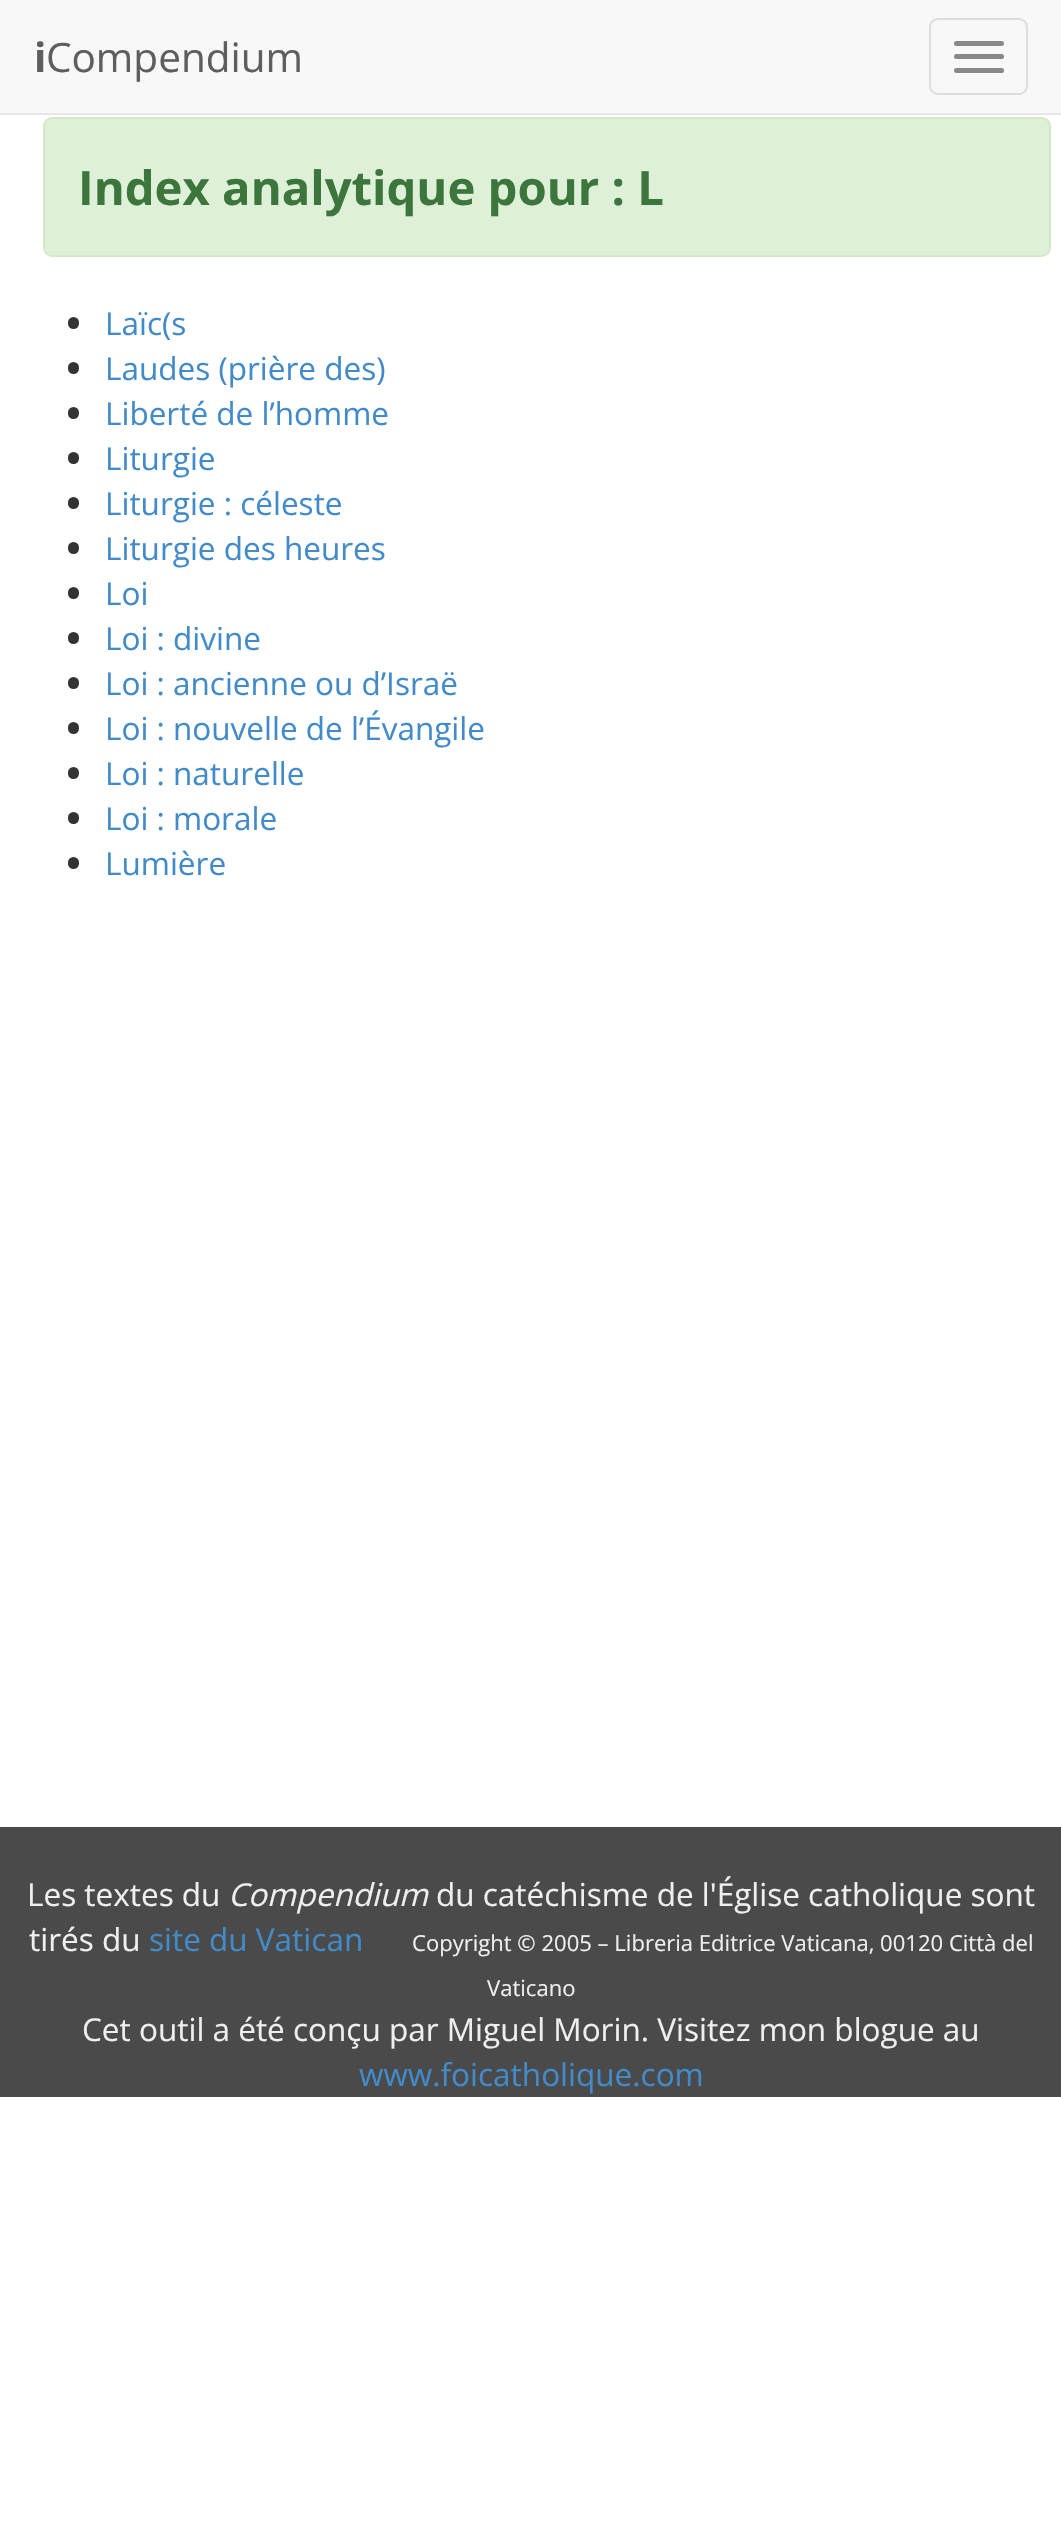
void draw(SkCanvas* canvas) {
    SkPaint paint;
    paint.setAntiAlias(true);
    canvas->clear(0xFFFFFFFF);
    paint.setColor(0xFFF8F8F8);
    canvas->drawRect(SkRect::MakeXYWH(0, 0, 1061, 113), paint);
    paint.setColor(0xFFE7E7E7);
    canvas->drawRect(SkRect::MakeXYWH(0, 113, 1061, 2), paint);
    SkFont font1(fontMgr->matchFamilyStyle("Open Sans", SkFontStyle::Bold()), 40.5f);
    font1.setSubpixel(true);
    paint.setColor(0xFF5E5E5E);
    canvas->drawString("i", 34, 72, font1, paint);
    SkFont font2(fontMgr->matchFamilyStyle("Open Sans", SkFontStyle::Normal()), 40.5f);
    font2.setSubpixel(true);
    canvas->drawString("Compendium", 46, 72, font2, paint);
    paint.setStyle(SkPaint::kStroke_Style);
    paint.setStrokeWidth(2);
    paint.setColor(0xFFDDDDDD);
    canvas->drawRoundRect(SkRect::MakeXYWH(930, 19, 97, 75), 8, 8, paint);
    paint.setStyle(SkPaint::kFill_Style);
    paint.setColor(0xFF888888);
    canvas->drawRoundRect(SkRect::MakeXYWH(954, 41, 50, 5), 2.5f, 2.5f, paint);
    canvas->drawRoundRect(SkRect::MakeXYWH(954, 54, 50, 5), 2.5f, 2.5f, paint);
    canvas->drawRoundRect(SkRect::MakeXYWH(954, 68, 50, 5), 2.5f, 2.5f, paint);
    paint.setColor(0xFFDFF0D8);
    canvas->drawRoundRect(SkRect::MakeXYWH(44, 118, 1006, 138), 8, 8, paint);
    paint.setStyle(SkPaint::kStroke_Style);
    paint.setColor(0xFFD6E9C6);
    canvas->drawRoundRect(SkRect::MakeXYWH(44, 118, 1006, 138), 8, 8, paint);
    SkFont font3(fontMgr->matchFamilyStyle("Open Sans", SkFontStyle::Bold()), 47.25f);
    font3.setSubpixel(true);
    paint.setStyle(SkPaint::kFill_Style);
    paint.setColor(0xFF3C763D);
    canvas->drawString("Index analytique pour : L", 78, 205, font3, paint);
    paint.setColor(0xFF333333);
    canvas->drawRoundRect(SkRect::MakeXYWH(68, 317, 11, 12), 5.5f, 5.5f, paint);
    SkFont font4(fontMgr->matchFamilyStyle("Open Sans", SkFontStyle::Normal()), 31.5f);
    font4.setSubpixel(true);
    paint.setColor(0xFF428BCA);
    canvas->drawString("Laïc(s", 105, 335, font4, paint);
    paint.setColor(0xFF333333);
    canvas->drawRoundRect(SkRect::MakeXYWH(68, 362, 11, 12), 5.5f, 5.5f, paint);
    paint.setColor(0xFF428BCA);
    canvas->drawString("Laudes (prière des)", 105, 380, font4, paint);
    paint.setColor(0xFF333333);
    canvas->drawRoundRect(SkRect::MakeXYWH(68, 407, 11, 12), 5.5f, 5.5f, paint);
    paint.setColor(0xFF428BCA);
    canvas->drawString("Liberté de l’homme", 105, 425, font4, paint);
    paint.setColor(0xFF333333);
    canvas->drawRoundRect(SkRect::MakeXYWH(68, 452, 11, 12), 5.5f, 5.5f, paint);
    paint.setColor(0xFF428BCA);
    canvas->drawString("Liturgie", 105, 470, font4, paint);
    paint.setColor(0xFF333333);
    canvas->drawRoundRect(SkRect::MakeXYWH(68, 497, 11, 12), 5.5f, 5.5f, paint);
    paint.setColor(0xFF428BCA);
    canvas->drawString("Liturgie : céleste", 105, 515, font4, paint);
    paint.setColor(0xFF333333);
    canvas->drawRoundRect(SkRect::MakeXYWH(68, 542, 11, 12), 5.5f, 5.5f, paint);
    paint.setColor(0xFF428BCA);
    canvas->drawString("Liturgie des heures", 105, 560, font4, paint);
    paint.setColor(0xFF333333);
    canvas->drawRoundRect(SkRect::MakeXYWH(68, 587, 11, 12), 5.5f, 5.5f, paint);
    paint.setColor(0xFF428BCA);
    canvas->drawString("Loi", 105, 605, font4, paint);
    paint.setColor(0xFF333333);
    canvas->drawRoundRect(SkRect::MakeXYWH(68, 632, 11, 12), 5.5f, 5.5f, paint);
    paint.setColor(0xFF428BCA);
    canvas->drawString("Loi : divine", 105, 650, font4, paint);
    paint.setColor(0xFF333333);
    canvas->drawRoundRect(SkRect::MakeXYWH(68, 677, 11, 12), 5.5f, 5.5f, paint);
    paint.setColor(0xFF428BCA);
    canvas->drawString("Loi : ancienne ou d’Israë", 105, 695, font4, paint);
    paint.setColor(0xFF333333);
    canvas->drawRoundRect(SkRect::MakeXYWH(68, 722, 11, 12), 5.5f, 5.5f, paint);
    paint.setColor(0xFF428BCA);
    canvas->drawString("Loi : nouvelle de l’Évangile", 105, 740, font4, paint);
    paint.setColor(0xFF333333);
    canvas->drawRoundRect(SkRect::MakeXYWH(68, 767, 11, 12), 5.5f, 5.5f, paint);
    paint.setColor(0xFF428BCA);
    canvas->drawString("Loi : naturelle", 105, 785, font4, paint);
    paint.setColor(0xFF333333);
    canvas->drawRoundRect(SkRect::MakeXYWH(68, 812, 11, 12), 5.5f, 5.5f, paint);
    paint.setColor(0xFF428BCA);
    canvas->drawString("Loi : morale", 105, 830, font4, paint);
    paint.setColor(0xFF333333);
    canvas->drawRoundRect(SkRect::MakeXYWH(68, 857, 11, 12), 5.5f, 5.5f, paint);
    paint.setColor(0xFF428BCA);
    canvas->drawString("Lumière", 105, 875, font4, paint);
    paint.setColor(0xFF4A4A4A);
    canvas->drawRect(SkRect::MakeXYWH(0, 1827, 1061, 270), paint);
    paint.setColor(0xFFEEEEEE);
    canvas->drawString("Les textes du", 27, 1906, font4, paint);
    SkFont font5(fontMgr->matchFamilyStyle("Open Sans", SkFontStyle::Italic()), 31.5f);
    font5.setSubpixel(true);
    canvas->drawString("Compendium", 228, 1906, font5, paint);
    canvas->drawString("du catéchisme de l'Église catholique sont", 436, 1906, font4, paint);
    canvas->drawString("tirés du", 29, 1951, font4, paint);
    paint.setColor(0xFF428BCA);
    canvas->drawString("site du Vatican", 149, 1951, font4, paint);
    SkFont font6(fontMgr->matchFamilyStyle("Open Sans", SkFontStyle::Normal()), 22.05f);
    font6.setSubpixel(true);
    paint.setColor(0xFFEEEEEE);
    canvas->drawString("Copyright © 2005 – Libreria Editrice Vaticana, 00120 Città del", 412, 1951, font6, paint);
    canvas->drawString("Vaticano", 487, 1996, font6, paint);
    canvas->drawString("Cet outil a été conçu par Miguel Morin. Visitez mon blogue au", 82, 2041, font4, paint);
    paint.setColor(0xFF428BCA);
    canvas->drawString("www.foicatholique.com", 359, 2086, font4, paint);
}
